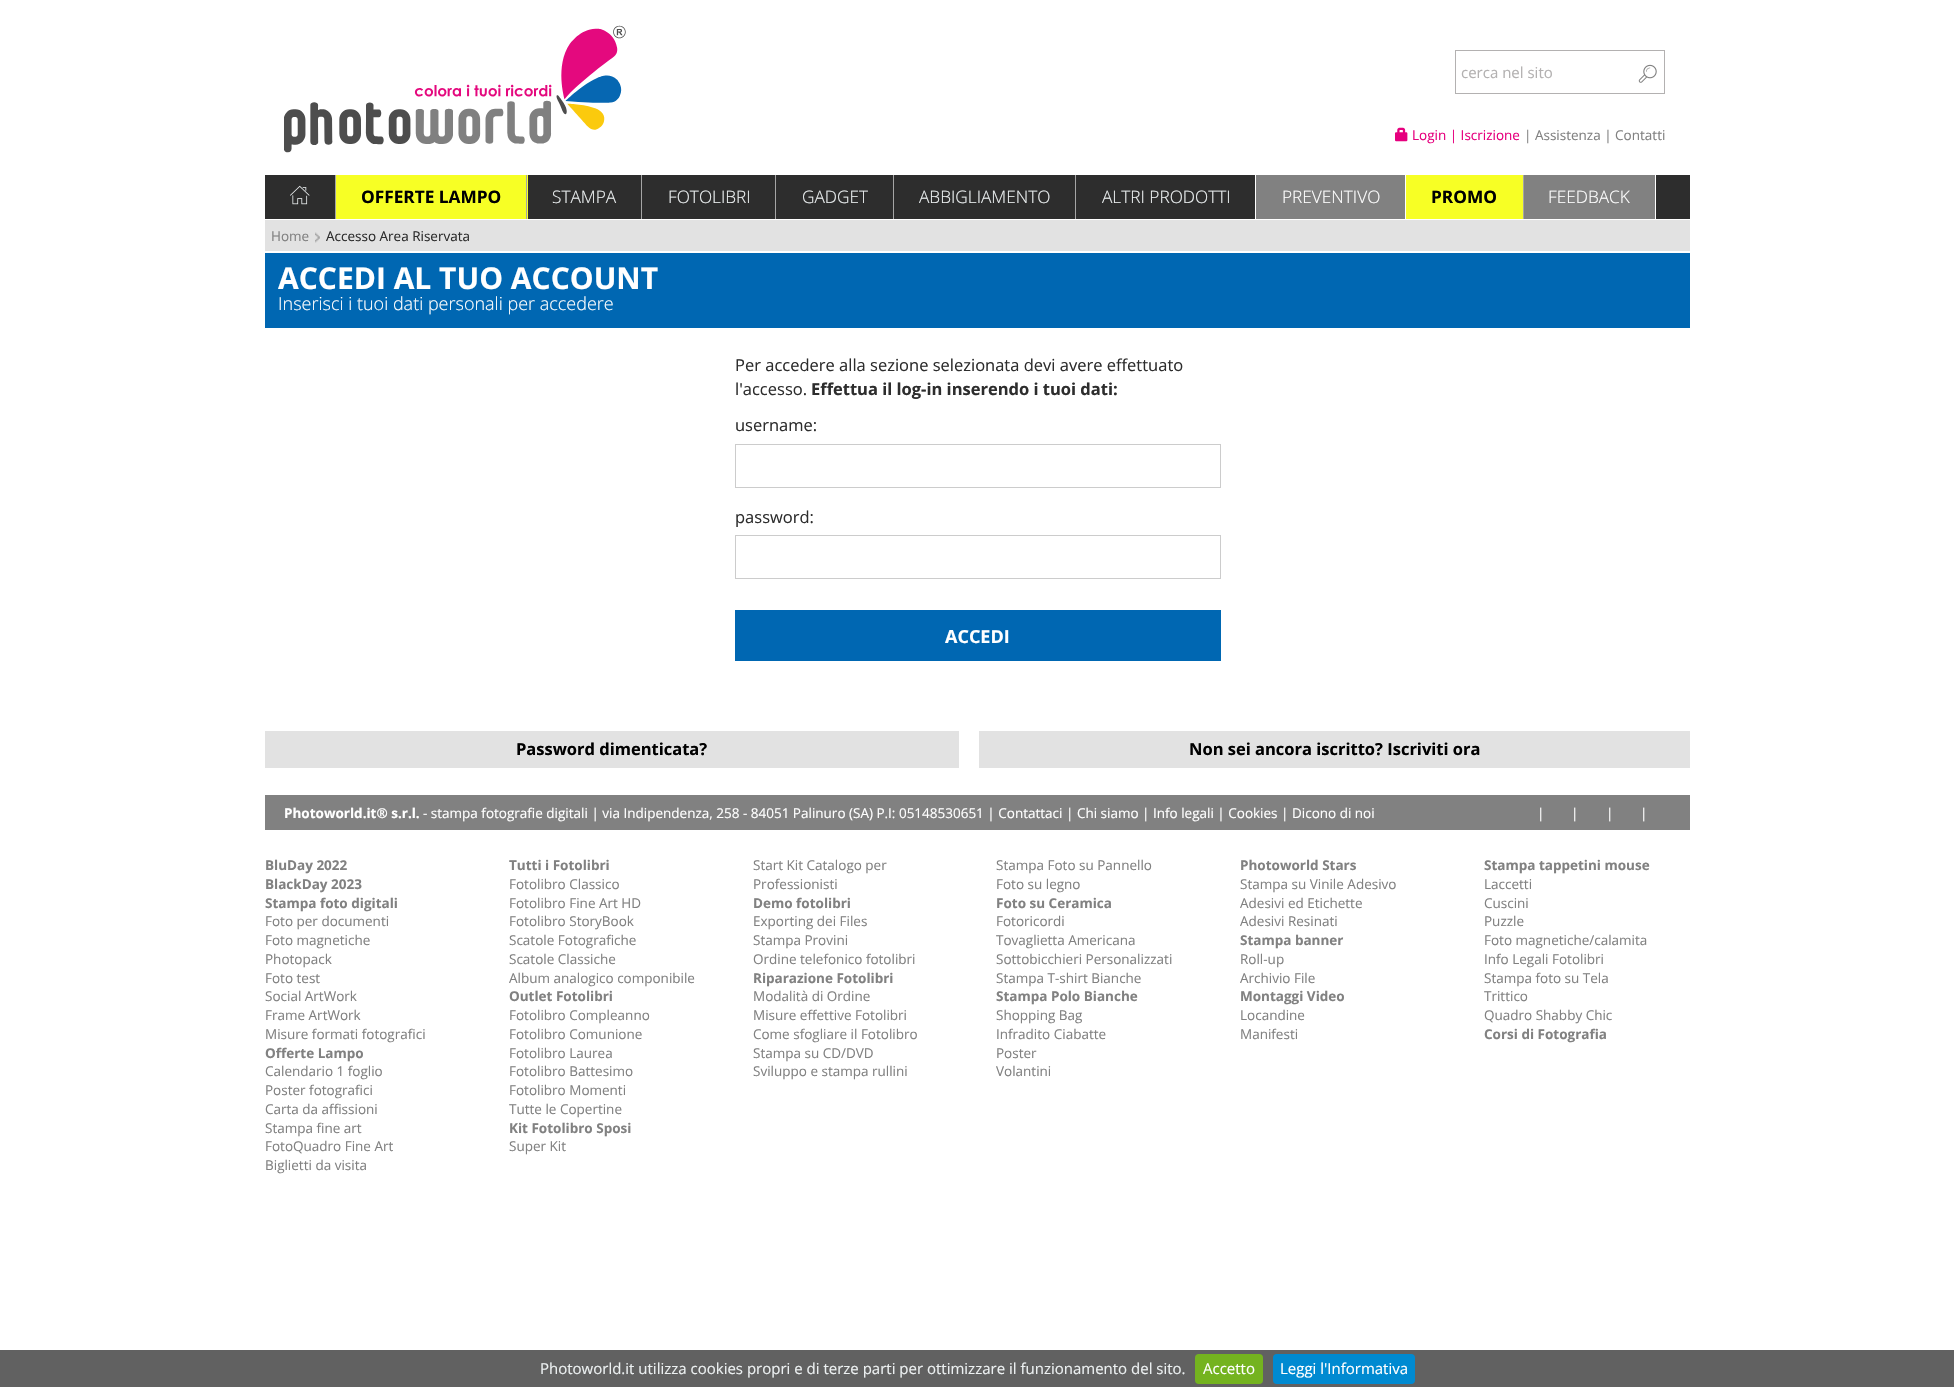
void draw(SkCanvas* canvas) {
    SkPaint paint;
    paint.setAntiAlias(true);
    canvas->clear(0xFFFFFFFF);
    canvas->drawImageRect(SkImages::DeferredFromEncodedData(SkData::MakeFromFileName("img1.png")), SkRect::MakeXYWH(284, 25, 342, 128), SkSamplingOptions());
    paint.setColor(0xFFB3B1B1);
    canvas->drawRect(SkRect::MakeXYWH(1455, 50, 210, 1), paint);
    canvas->drawRect(SkRect::MakeXYWH(1455, 93, 176, 1), paint);
    canvas->drawRect(SkRect::MakeXYWH(1455, 50, 1, 44), paint);
    SkFont font1(fontMgr->matchFamilyStyle("Open Sans", SkFontStyle::Normal()), 15);
    font1.setSubpixel(true);
    canvas->drawString("cerca nel sito", 1461, 78, font1, paint);
    canvas->drawRect(SkRect::MakeXYWH(1664, 50, 1, 44), paint);
    canvas->drawRect(SkRect::MakeXYWH(1631, 93, 34, 1), paint);
    canvas->drawImageRect(SkImages::DeferredFromEncodedData(SkData::MakeFromFileName("img2.png")), SkRect::MakeXYWH(1638, 64, 19, 19), SkSamplingOptions());
    canvas->drawImageRect(SkImages::DeferredFromEncodedData(SkData::MakeFromFileName("img3.png")), SkRect::MakeXYWH(1395, 127, 13, 15), SkSamplingOptions());
    SkFont font2(fontMgr->matchFamilyStyle("Open Sans", SkFontStyle::Normal()), 13.5f);
    font2.setSubpixel(true);
    paint.setColor(0xFFE6007E);
    canvas->drawString("Login | Iscrizione", 1412, 140, font2, paint);
    paint.setColor(0xFF818181);
    canvas->drawString("| Assistenza | Contatti", 1524, 140, font2, paint);
    paint.setColor(0xFF2D2D2D);
    canvas->drawRect(SkRect::MakeXYWH(265, 175, 1425, 44), paint);
    paint.setColor(0xFFA5A5A5);
    canvas->drawRect(SkRect::MakeXYWH(335, 175, 1, 44), paint);
    canvas->drawImageRect(SkImages::DeferredFromEncodedData(SkData::MakeFromFileName("img4.png")), SkRect::MakeXYWH(290, 185, 20, 20), SkSamplingOptions());
    paint.setColor(0xFFF7FF25);
    canvas->drawRect(SkRect::MakeXYWH(336, 175, 192, 44), paint);
    paint.setColor(0xFFA5A5A5);
    canvas->drawRect(SkRect::MakeXYWH(526, 175, 1, 44), paint);
    SkFont font3(fontMgr->matchFamilyStyle("Open Sans", SkFontStyle::Bold()), 17.25f);
    font3.setSubpixel(true);
    paint.setColor(0xFF000000);
    canvas->drawString("OFFERTE LAMPO", 361, 203, font3, paint);
    paint.setColor(0xFFA5A5A5);
    canvas->drawRect(SkRect::MakeXYWH(641, 175, 1, 44), paint);
    SkFont font4(fontMgr->matchFamilyStyle("Open Sans", SkFontStyle(300, SkFontStyle::kNormal_Width, SkFontStyle::kUpright_Slant)), 17.25f);
    font4.setSubpixel(true);
    paint.setColor(0xFFECF0F1);
    canvas->drawString("STAMPA", 552, 203, font4, paint);
    paint.setColor(0xFFA5A5A5);
    canvas->drawRect(SkRect::MakeXYWH(775, 175, 1, 44), paint);
    paint.setColor(0xFFECF0F1);
    canvas->drawString("FOTOLIBRI", 668, 203, font4, paint);
    paint.setColor(0xFFA5A5A5);
    canvas->drawRect(SkRect::MakeXYWH(893, 175, 1, 44), paint);
    paint.setColor(0xFFECF0F1);
    canvas->drawString("GADGET", 802, 203, font4, paint);
    paint.setColor(0xFFA5A5A5);
    canvas->drawRect(SkRect::MakeXYWH(1075, 175, 1, 44), paint);
    paint.setColor(0xFFECF0F1);
    canvas->drawString("ABBIGLIAMENTO", 919, 203, font4, paint);
    paint.setColor(0xFFFFFFFF);
    canvas->drawRect(SkRect::MakeXYWH(1255, 175, 1, 44), paint);
    paint.setColor(0xFFECF0F1);
    canvas->drawString("ALTRI PRODOTTI", 1102, 203, font4, paint);
    paint.setColor(0xFF818181);
    canvas->drawRect(SkRect::MakeXYWH(1256, 175, 149, 44), paint);
    paint.setColor(0xFFFFFFFF);
    canvas->drawRect(SkRect::MakeXYWH(1405, 175, 1, 44), paint);
    canvas->drawString("PREVENTIVO", 1282, 203, font4, paint);
    paint.setColor(0xFFF7FF25);
    canvas->drawRect(SkRect::MakeXYWH(1406, 175, 117, 44), paint);
    paint.setColor(0xFFA5A5A5);
    canvas->drawRect(SkRect::MakeXYWH(1523, 175, 1, 44), paint);
    paint.setColor(0xFF000000);
    canvas->drawString("PROMO", 1431, 203, font3, paint);
    paint.setColor(0xFF818181);
    canvas->drawRect(SkRect::MakeXYWH(1524, 175, 131, 44), paint);
    paint.setColor(0xFFFFFFFF);
    canvas->drawRect(SkRect::MakeXYWH(1655, 175, 1, 44), paint);
    canvas->drawString("FEEDBACK", 1548, 203, font4, paint);
    paint.setColor(0xFFE2E2E2);
    canvas->drawRect(SkRect::MakeXYWH(265, 220, 1425, 31), paint);
    paint.setColor(0xFF818181);
    canvas->drawString("Home", 271, 241, font2, paint);
    canvas->drawImageRect(SkImages::DeferredFromEncodedData(SkData::MakeFromFileName("img5.png")), SkRect::MakeXYWH(315, 232, 5, 11), SkSamplingOptions());
    paint.setColor(0xFF2D2D2D);
    canvas->drawString("Accesso Area Riservata", 326, 241, font2, paint);
    paint.setColor(0xFF0067B2);
    canvas->drawRect(SkRect::MakeXYWH(265, 253, 1425, 75), paint);
    SkFont font5(fontMgr->matchFamilyStyle("Open Sans", SkFontStyle::Bold()), 30);
    font5.setSubpixel(true);
    paint.setColor(0xFFFFFFFF);
    canvas->drawString("ACCEDI AL TUO ACCOUNT", 278, 289, font5, paint);
    SkFont font6(fontMgr->matchFamilyStyle("Open Sans", SkFontStyle(300, SkFontStyle::kNormal_Width, SkFontStyle::kUpright_Slant)), 18);
    font6.setSubpixel(true);
    canvas->drawString("Inserisci i tuoi dati personali per accedere", 278, 310, font6, paint);
    SkFont font7(fontMgr->matchFamilyStyle("Open Sans", SkFontStyle::Normal()), 16.5f);
    font7.setSubpixel(true);
    paint.setColor(0xFF2D2D2D);
    canvas->drawString("Per accedere alla sezione selezionata devi avere effettuato", 735, 371, font7, paint);
    canvas->drawString("l'accesso.", 735, 395, font7, paint);
    SkFont font8(fontMgr->matchFamilyStyle("Open Sans", SkFontStyle::Bold()), 16.5f);
    font8.setSubpixel(true);
    canvas->drawString("Effettua il log-in inserendo i tuoi dati:", 811, 395, font8, paint);
    canvas->drawString("username:", 735, 431, font7, paint);
    paint.setStyle(SkPaint::kStroke_Style);
    paint.setStrokeWidth(1);
    paint.setColor(0xFFCCCCCC);
    canvas->drawRect(SkRect::MakeXYWH(735.5f, 444.5f, 485, 43), paint);
    paint.setStyle(SkPaint::kFill_Style);
    paint.setColor(0xFF2D2D2D);
    canvas->drawString("password:", 735, 523, font7, paint);
    paint.setStyle(SkPaint::kStroke_Style);
    paint.setColor(0xFFCCCCCC);
    canvas->drawRect(SkRect::MakeXYWH(735.5f, 535.5f, 485, 43), paint);
    paint.setStyle(SkPaint::kFill_Style);
    paint.setColor(0xFF0067B2);
    canvas->drawRect(SkRect::MakeXYWH(735, 610, 486, 51), paint);
    SkFont font9(fontMgr->matchFamilyStyle("Open Sans", SkFontStyle::Bold()), 18);
    font9.setSubpixel(true);
    paint.setColor(0xFFFFFFFF);
    canvas->drawString("ACCEDI", 945, 643, font9, paint);
    paint.setColor(0xFFE2E2E2);
    canvas->drawRect(SkRect::MakeXYWH(265, 731, 694, 37), paint);
    paint.setColor(0xFF000000);
    canvas->drawString("Password dimenticata?", 516, 755, font8, paint);
    paint.setColor(0xFFE2E2E2);
    canvas->drawRect(SkRect::MakeXYWH(979, 731, 711, 37), paint);
    paint.setColor(0xFF000000);
    canvas->drawString("Non sei ancora iscritto? Iscriviti ora", 1189, 755, font8, paint);
    paint.setColor(0xFF818181);
    canvas->drawRect(SkRect::MakeXYWH(265, 795, 1425, 35), paint);
    SkFont font10(fontMgr->matchFamilyStyle("Open Sans", SkFontStyle::Bold()), 13.5f);
    font10.setSubpixel(true);
    paint.setColor(0xFFFFFFFF);
    canvas->drawString("Photoworld.it® s.r.l.", 284, 818, font10, paint);
    canvas->drawString("- stampa fotografie digitali | via Indipendenza, 258 - 84051 Palinuro (SA) P.I: 05148530651 | Contattaci | Chi siamo | Info legali | Cookies | Dicono di noi", 423, 818, font2, paint);
    canvas->drawString("|", 1537, 818, font2, paint);
    canvas->drawString("|", 1571, 818, font2, paint);
    canvas->drawString("|", 1606, 818, font2, paint);
    canvas->drawString("|", 1640, 818, font2, paint);
    paint.setColor(0xFF818181);
    canvas->drawString("BluDay 2022", 265, 870, font10, paint);
    canvas->drawString("BlackDay 2023", 265, 889, font10, paint);
    canvas->drawString("Stampa foto digitali", 265, 908, font10, paint);
    canvas->drawString("Foto per documenti", 265, 926, font2, paint);
    canvas->drawString("Foto magnetiche", 265, 945, font2, paint);
    canvas->drawString("Photopack", 265, 964, font2, paint);
    canvas->drawString("Foto test", 265, 983, font2, paint);
    canvas->drawString("Social ArtWork", 265, 1001, font2, paint);
    canvas->drawString("Frame ArtWork", 265, 1020, font2, paint);
    canvas->drawString("Misure formati fotografici", 265, 1039, font2, paint);
    canvas->drawString("Offerte Lampo", 265, 1058, font10, paint);
    canvas->drawString("Calendario 1 foglio", 265, 1076, font2, paint);
    canvas->drawString("Poster fotografici", 265, 1095, font2, paint);
    canvas->drawString("Carta da affissioni", 265, 1114, font2, paint);
    canvas->drawString("Stampa fine art", 265, 1133, font2, paint);
    canvas->drawString("FotoQuadro Fine Art", 265, 1151, font2, paint);
    canvas->drawString("Biglietti da visita", 265, 1170, font2, paint);
    canvas->drawString("Tutti i Fotolibri", 509, 870, font10, paint);
    canvas->drawString("Fotolibro Classico", 509, 889, font2, paint);
    canvas->drawString("Fotolibro Fine Art HD", 509, 908, font2, paint);
    canvas->drawString("Fotolibro StoryBook", 509, 926, font2, paint);
    canvas->drawString("Scatole Fotografiche", 509, 945, font2, paint);
    canvas->drawString("Scatole Classiche", 509, 964, font2, paint);
    canvas->drawString("Album analogico componibile", 509, 983, font2, paint);
    canvas->drawString("Outlet Fotolibri", 509, 1001, font10, paint);
    canvas->drawString("Fotolibro Compleanno", 509, 1020, font2, paint);
    canvas->drawString("Fotolibro Comunione", 509, 1039, font2, paint);
    canvas->drawString("Fotolibro Laurea", 509, 1058, font2, paint);
    canvas->drawString("Fotolibro Battesimo", 509, 1076, font2, paint);
    canvas->drawString("Fotolibro Momenti", 509, 1095, font2, paint);
    canvas->drawString("Tutte le Copertine", 509, 1114, font2, paint);
    canvas->drawString("Kit Fotolibro Sposi", 509, 1133, font10, paint);
    canvas->drawString("Super Kit", 509, 1151, font2, paint);
    canvas->drawString("Start Kit Catalogo per", 753, 870, font2, paint);
    canvas->drawString("Professionisti", 753, 889, font2, paint);
    canvas->drawString("Demo fotolibri", 753, 908, font10, paint);
    canvas->drawString("Exporting dei Files", 753, 926, font2, paint);
    canvas->drawString("Stampa Provini", 753, 945, font2, paint);
    canvas->drawString("Ordine telefonico fotolibri", 753, 964, font2, paint);
    canvas->drawString("Riparazione Fotolibri", 753, 983, font10, paint);
    canvas->drawString("Modalità di Ordine", 753, 1001, font2, paint);
    canvas->drawString("Misure effettive Fotolibri", 753, 1020, font2, paint);
    canvas->drawString("Come sfogliare il Fotolibro", 753, 1039, font2, paint);
    canvas->drawString("Stampa su CD/DVD", 753, 1058, font2, paint);
    canvas->drawString("Sviluppo e stampa rullini", 753, 1076, font2, paint);
    canvas->drawString("Stampa Foto su Pannello", 996, 870, font2, paint);
    canvas->drawString("Foto su legno", 996, 889, font2, paint);
    canvas->drawString("Foto su Ceramica", 996, 908, font10, paint);
    canvas->drawString("Fotoricordi", 996, 926, font2, paint);
    canvas->drawString("Tovaglietta Americana", 996, 945, font2, paint);
    canvas->drawString("Sottobicchieri Personalizzati", 996, 964, font2, paint);
    canvas->drawString("Stampa T-shirt Bianche", 996, 983, font2, paint);
    canvas->drawString("Stampa Polo Bianche", 996, 1001, font10, paint);
    canvas->drawString("Shopping Bag", 996, 1020, font2, paint);
    canvas->drawString("Infradito Ciabatte", 996, 1039, font2, paint);
    canvas->drawString("Poster", 996, 1058, font2, paint);
    canvas->drawString("Volantini", 996, 1076, font2, paint);
    canvas->drawString("Photoworld Stars", 1240, 870, font10, paint);
    canvas->drawString("Stampa su Vinile Adesivo", 1240, 889, font2, paint);
    canvas->drawString("Adesivi ed Etichette", 1240, 908, font2, paint);
    canvas->drawString("Adesivi Resinati", 1240, 926, font2, paint);
    canvas->drawString("Stampa banner", 1240, 945, font10, paint);
    canvas->drawString("Roll-up", 1240, 964, font2, paint);
    canvas->drawString("Archivio File", 1240, 983, font2, paint);
    canvas->drawString("Montaggi Video", 1240, 1001, font10, paint);
    canvas->drawString("Locandine", 1240, 1020, font2, paint);
    canvas->drawString("Manifesti", 1240, 1039, font2, paint);
    canvas->drawString("Stampa tappetini mouse", 1484, 870, font10, paint);
    canvas->drawString("Laccetti", 1484, 889, font2, paint);
    canvas->drawString("Cuscini", 1484, 908, font2, paint);
    canvas->drawString("Puzzle", 1484, 926, font2, paint);
    canvas->drawString("Foto magnetiche/calamita", 1484, 945, font2, paint);
    canvas->drawString("Info Legali Fotolibri", 1484, 964, font2, paint);
    canvas->drawString("Stampa foto su Tela", 1484, 983, font2, paint);
    canvas->drawString("Trittico", 1484, 1001, font2, paint);
    canvas->drawString("Quadro Shabby Chic", 1484, 1020, font2, paint);
    canvas->drawString("Corsi di Fotografia", 1484, 1039, font10, paint);
    paint.setColor(0xFF616161);
    canvas->drawRect(SkRect::MakeXYWH(0, 1350, 1954, 37), paint);
    paint.setColor(0xFFECF0F1);
    canvas->drawString("Photoworld.it utilizza cookies propri e di terze parti per ottimizzare il funzionamento del sito.", 540, 1374, font1, paint);
    paint.setColor(0xFF74B31F);
    canvas->drawRoundRect(SkRect::MakeXYWH(1195, 1354, 68, 30), 4, 4, paint);
    paint.setColor(0xFFFFFFFF);
    canvas->drawString("Accetto", 1203, 1374, font1, paint);
    paint.setColor(0xFF008AD1);
    canvas->drawRoundRect(SkRect::MakeXYWH(1273, 1354, 142, 30), 4, 4, paint);
    paint.setColor(0xFFFFFFFF);
    canvas->drawString("Leggi l'Informativa", 1280, 1374, font1, paint);
}
